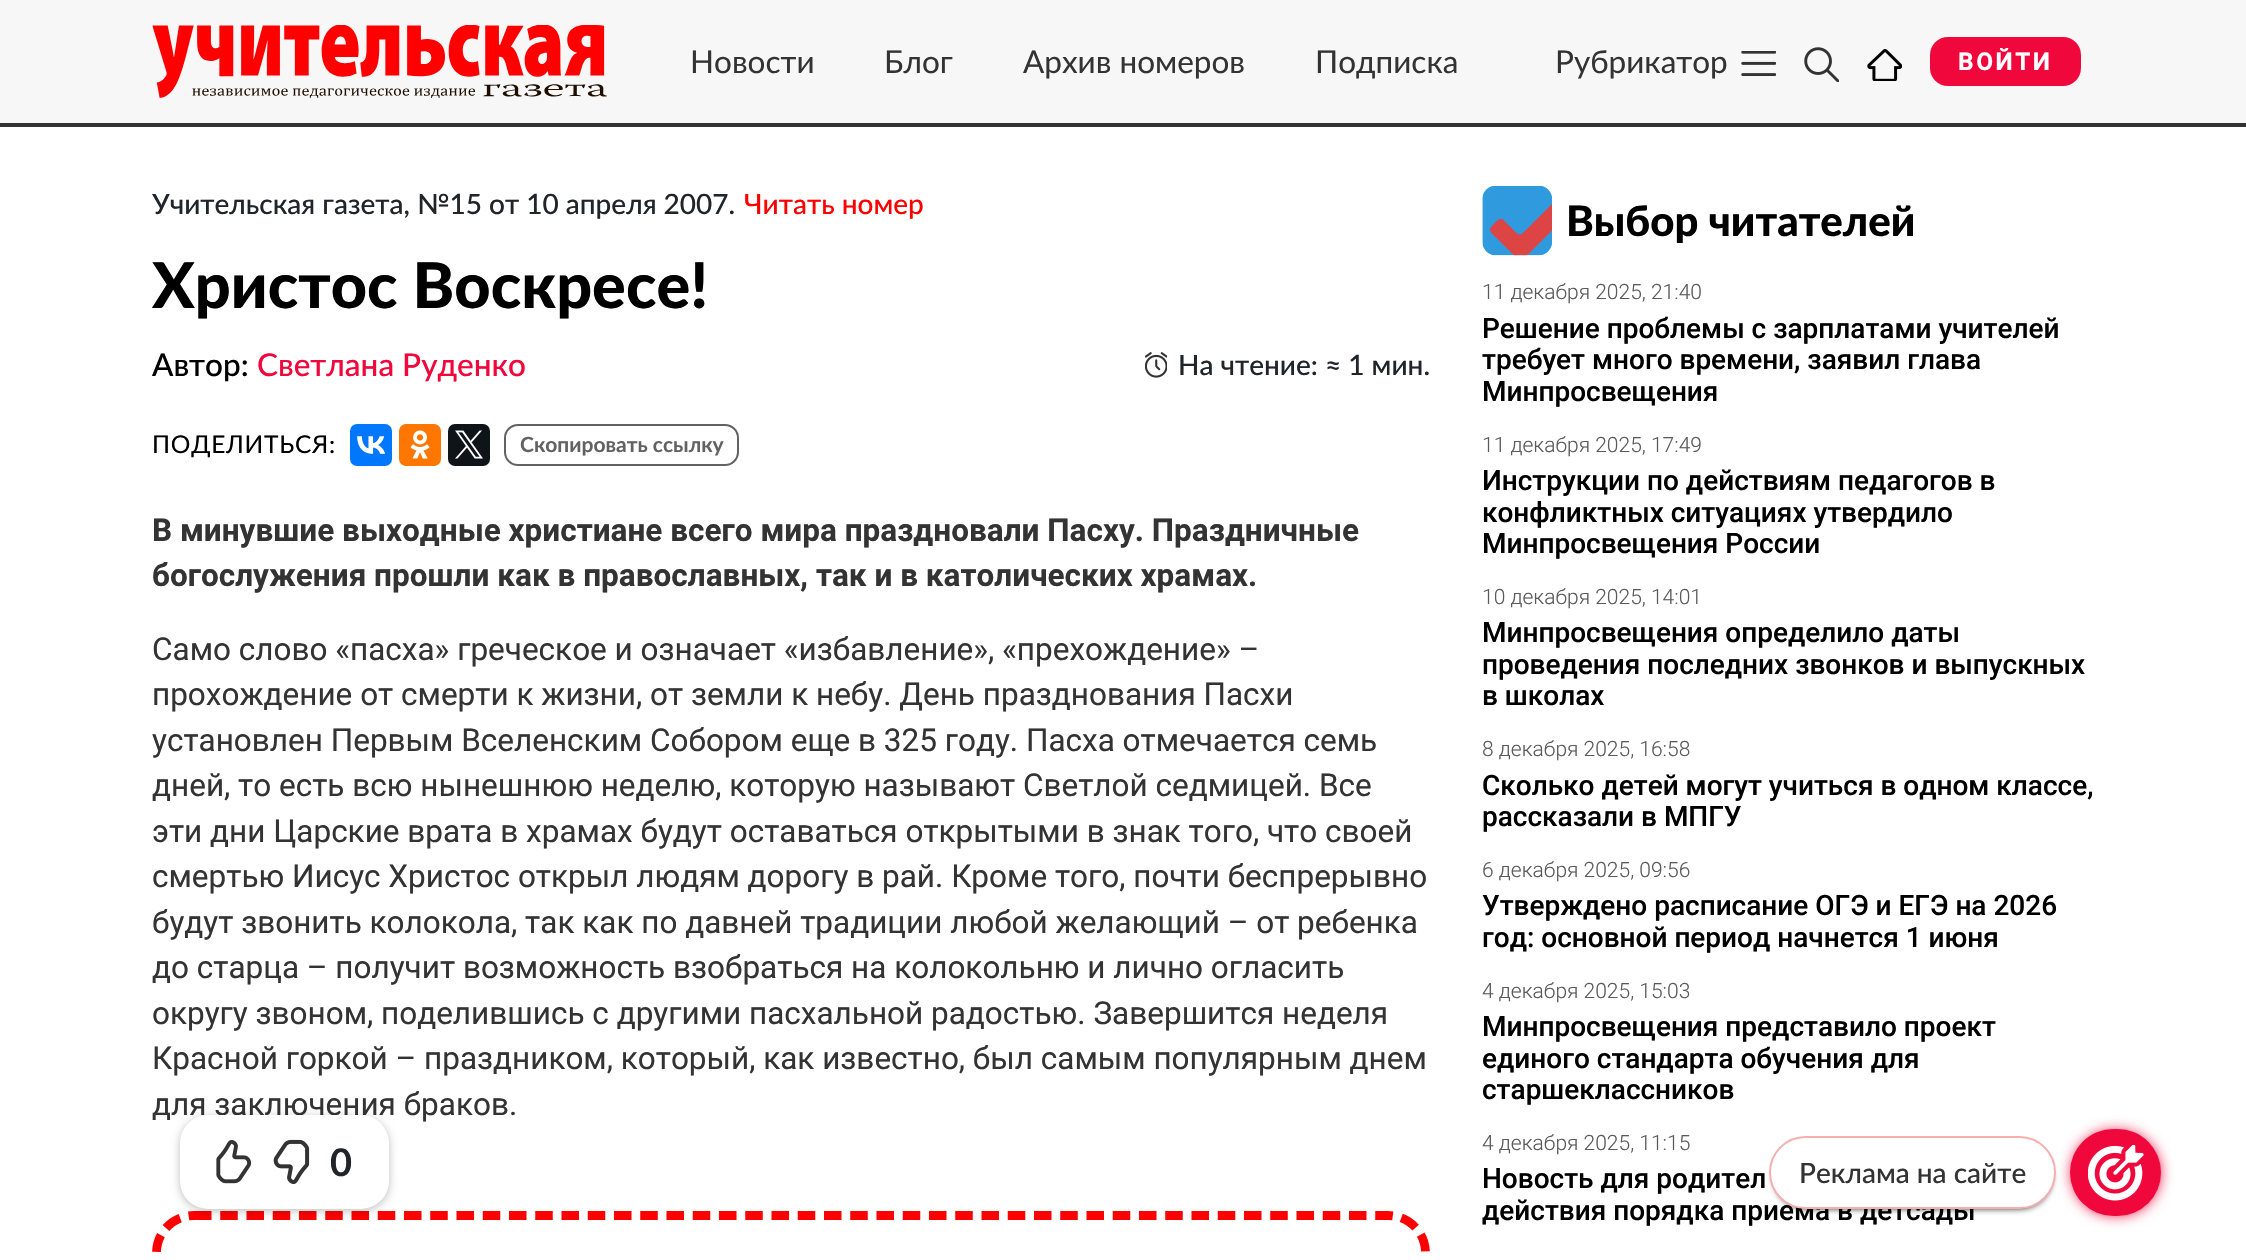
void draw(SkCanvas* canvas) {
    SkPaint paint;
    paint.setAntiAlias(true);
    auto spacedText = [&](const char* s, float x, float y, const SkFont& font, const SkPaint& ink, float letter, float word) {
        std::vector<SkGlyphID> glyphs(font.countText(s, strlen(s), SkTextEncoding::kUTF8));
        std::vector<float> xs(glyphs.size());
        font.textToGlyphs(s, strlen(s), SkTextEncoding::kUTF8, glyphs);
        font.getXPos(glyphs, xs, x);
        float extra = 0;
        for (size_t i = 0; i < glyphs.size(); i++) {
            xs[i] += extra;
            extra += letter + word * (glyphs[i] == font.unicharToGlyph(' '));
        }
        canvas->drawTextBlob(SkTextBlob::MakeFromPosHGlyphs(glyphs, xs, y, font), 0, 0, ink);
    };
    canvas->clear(0xFFFFFFFF);
    paint.setColor(0xFFF7F7F7);
    canvas->drawRect(SkRect::MakeXYWH(0, 0, 2246, 123), paint);
    paint.setColor(0xFF333333);
    canvas->drawRect(SkRect::MakeXYWH(0, 123, 2246, 4), paint);
    canvas->drawImageRect(SkImages::DeferredFromEncodedData(SkData::MakeFromFileName("img1.png")), SkRect::MakeXYWH(152, 25, 455, 73), SkSamplingOptions());
    SkFont font1(fontMgr->matchFamilyStyle("Lato", SkFontStyle::Normal()), 31.5f);
    font1.setSubpixel(true);
    canvas->drawString("Новости", 690, 73, font1, paint);
    canvas->drawString("Блог", 884, 73, font1, paint);
    canvas->drawString("Архив номеров", 1023, 73, font1, paint);
    canvas->drawString("Подписка", 1315, 73, font1, paint);
    canvas->drawString("Рубрикатор", 1555, 73, font1, paint);
    canvas->drawImageRect(SkImages::DeferredFromEncodedData(SkData::MakeFromFileName("img2.png")), SkRect::MakeXYWH(1741, 51, 35, 25), SkSamplingOptions());
    canvas->drawImageRect(SkImages::DeferredFromEncodedData(SkData::MakeFromFileName("img3.png")), SkRect::MakeXYWH(1804, 47, 35, 35), SkSamplingOptions());
    canvas->drawImageRect(SkImages::DeferredFromEncodedData(SkData::MakeFromFileName("img4.png")), SkRect::MakeXYWH(1867, 49, 35, 32), SkSamplingOptions());
    paint.setColor(0xFFF0073B);
    canvas->drawRoundRect(SkRect::MakeXYWH(1930, 37, 151, 49), 18, 18, paint);
    SkFont font2(fontMgr->matchFamilyStyle("Roboto", SkFontStyle::Bold()), 24.5f);
    font2.setSubpixel(true);
    paint.setColor(0xFFFFFFFF);
    spacedText("ВОЙТИ", 1958, 70, font2, paint, 2.5f, 0);
    SkFont font3(fontMgr->matchFamilyStyle("Lato", SkFontStyle(500, SkFontStyle::kNormal_Width, SkFontStyle::kUpright_Slant)), 28);
    font3.setSubpixel(true);
    paint.setColor(0xFF212529);
    canvas->drawString("Учительская газета, №15 от 10 апреля 2007.", 152, 214, font3, paint);
    paint.setColor(0xFFFF0000);
    canvas->drawString("Читать номер", 744, 214, font3, paint);
    SkFont font4(fontMgr->matchFamilyStyle("Lato", SkFontStyle(800, SkFontStyle::kNormal_Width, SkFontStyle::kUpright_Slant)), 63);
    font4.setSubpixel(true);
    paint.setColor(0xFF000000);
    canvas->drawString("Христоc Воскресе!", 152, 308, font4, paint);
    SkFont font5(fontMgr->matchFamilyStyle("Lato", SkFontStyle(500, SkFontStyle::kNormal_Width, SkFontStyle::kUpright_Slant)), 31.5f);
    font5.setSubpixel(true);
    canvas->drawString("Автор:", 152, 376, font5, paint);
    paint.setColor(0xFFF0073B);
    canvas->drawString("Светлана Руденко", 257, 376, font5, paint);
    canvas->drawImageRect(SkImages::DeferredFromEncodedData(SkData::MakeFromFileName("img5.png")), SkRect::MakeXYWH(1145, 352, 22, 26), SkSamplingOptions());
    paint.setColor(0xFF212529);
    canvas->drawString("На чтение: ≈ 1 мин.", 1178, 375, font3, paint);
    SkFont font6(fontMgr->matchFamilyStyle("Lato", SkFontStyle::Normal()), 24.5f);
    font6.setSubpixel(true);
    paint.setColor(0xFF000000);
    spacedText("ПОДЕЛИТЬСЯ:", 152, 453, font6, paint, 0.75f, 0);
    paint.setColor(0xFF0077FF);
    canvas->drawRoundRect(SkRect::MakeXYWH(350, 424, 42, 42), 7, 7, paint);
    canvas->drawImageRect(SkImages::DeferredFromEncodedData(SkData::MakeFromFileName("img6.png")), SkRect::MakeXYWH(357, 436, 29, 18), SkSamplingOptions());
    paint.setColor(0xFFFF7700);
    canvas->drawRoundRect(SkRect::MakeXYWH(399, 424, 42, 42), 7, 7, paint);
    canvas->drawImageRect(SkImages::DeferredFromEncodedData(SkData::MakeFromFileName("img7.png")), SkRect::MakeXYWH(410, 430, 20, 29), SkSamplingOptions());
    paint.setColor(0xFF0F1419);
    canvas->drawRoundRect(SkRect::MakeXYWH(448, 424, 42, 42), 7, 7, paint);
    canvas->drawImageRect(SkImages::DeferredFromEncodedData(SkData::MakeFromFileName("img8.png")), SkRect::MakeXYWH(455, 430, 28, 29), SkSamplingOptions());
    paint.setStyle(SkPaint::kStroke_Style);
    paint.setStrokeWidth(2);
    paint.setColor(0xFF626262);
    canvas->drawRoundRect(SkRect::MakeXYWH(505, 425, 233, 40), 13, 13, paint);
    SkFont font7(fontMgr->matchFamilyStyle("Lato", SkFontStyle::Bold()), 21);
    font7.setSubpixel(true);
    paint.setStyle(SkPaint::kFill_Style);
    canvas->drawString("Скопировать ссылку", 520, 452, font7, paint);
    SkFont font8(fontMgr->matchFamilyStyle("Roboto", SkFontStyle::Bold()), 31.5f);
    font8.setSubpixel(true);
    paint.setColor(0xFF333333);
    canvas->drawString("В минувшие выходные христиане всего мира праздновали Пасху. Праздничные", 152, 541, font8, paint);
    canvas->drawString("богослужения прошли как в православных, так и в католических храмах.", 152, 586, font8, paint);
    SkFont font9(fontMgr->matchFamilyStyle("Roboto", SkFontStyle::Normal()), 31.5f);
    font9.setSubpixel(true);
    canvas->drawString("Само слово «пасха» греческое и означает «избавление», «прехождение» –", 152, 660, font9, paint);
    canvas->drawString("прохождение от смерти к жизни, от земли к небу. День празднования Пасхи", 152, 705, font9, paint);
    canvas->drawString("установлен Первым Вселенским Cобором еще в 325 году. Пасха отмечается семь", 152, 751, font9, paint);
    canvas->drawString("дней, то есть всю нынешнюю неделю, которую называют Светлой седмицей. Все", 152, 796, font9, paint);
    canvas->drawString("эти дни Царские врата в храмах будут оставаться открытыми в знак того, что своей", 152, 842, font9, paint);
    canvas->drawString("смертью Иисус Христос открыл людям дорогу в рай. Кроме того, почти беспрерывно", 152, 887, font9, paint);
    canvas->drawString("будут звонить колокола, так как по давней традиции любой желающий – от ребенка", 152, 933, font9, paint);
    canvas->drawString("до старца – получит возможность взобраться на колокольню и лично огласить", 152, 978, font9, paint);
    canvas->drawString("округу звоном, поделившись с другими пасхальной радостью. Завершится неделя", 152, 1024, font9, paint);
    canvas->drawString("Красной горкой – праздником, который, как известно, был самым популярным днем", 152, 1069, font9, paint);
    canvas->drawString("для заключения браков.", 152, 1115, font9, paint);
    paint.setStyle(SkPaint::kStroke_Style);
    paint.setStrokeWidth(8.8f);
    paint.setColor(0xFFFF0000);
    paint.setPathEffect(SkDashPathEffect::Make({{17.5f, 8.75f}}, 0));
    canvas->drawPath(SkPathBuilder().moveTo(194, 1215.5f).lineTo(1388, 1215.5f).cubicTo(1408.5f, 1215.5f, 1425.5f, 1232, 1425.5f, 1253).lineTo(1425.5f, 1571.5f).cubicTo(1425.5f, 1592.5f, 1408.5f, 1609, 1388, 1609).lineTo(194, 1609).cubicTo(173.5f, 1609, 156.5f, 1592.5f, 156.5f, 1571.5f).lineTo(156.5f, 1253).cubicTo(156.5f, 1232, 173.5f, 1215.5f, 194, 1215.5f).close().detach(), paint);
    paint.setPathEffect(nullptr);
    canvas->drawImageRect(SkImages::DeferredFromEncodedData(SkData::MakeFromFileName("img9.png")), SkRect::MakeXYWH(1482, 186, 70, 70), SkSamplingOptions());
    SkFont font10(fontMgr->matchFamilyStyle("Lato", SkFontStyle(800, SkFontStyle::kNormal_Width, SkFontStyle::kUpright_Slant)), 42);
    font10.setSubpixel(true);
    paint.setStyle(SkPaint::kFill_Style);
    paint.setColor(0xFF000000);
    canvas->drawString("Выбор читателей", 1566, 236, font10, paint);
    SkFont font11(fontMgr->matchFamilyStyle("Roboto", SkFontStyle(300, SkFontStyle::kNormal_Width, SkFontStyle::kUpright_Slant)), 21);
    font11.setSubpixel(true);
    paint.setColor(0xFF5A5A5A);
    canvas->drawString("11 декабря 2025, 21:40", 1482, 299, font11, paint);
    SkFont font12(fontMgr->matchFamilyStyle("Roboto", SkFontStyle(500, SkFontStyle::kNormal_Width, SkFontStyle::kUpright_Slant)), 28);
    font12.setSubpixel(true);
    paint.setColor(0xFF000000);
    canvas->drawString("Решение проблемы с зарплатами учителей", 1482, 338, font12, paint);
    canvas->drawString("требует много времени, заявил глава", 1482, 369, font12, paint);
    canvas->drawString("Минпросвещения", 1482, 401, font12, paint);
    paint.setColor(0xFF5A5A5A);
    canvas->drawString("11 декабря 2025, 17:49", 1482, 452, font11, paint);
    paint.setColor(0xFF000000);
    canvas->drawString("Инструкции по действиям педагогов в", 1482, 490, font12, paint);
    canvas->drawString("конфликтных ситуациях утвердило", 1482, 522, font12, paint);
    canvas->drawString("Минпросвещения России", 1482, 553, font12, paint);
    paint.setColor(0xFF5A5A5A);
    canvas->drawString("10 декабря 2025, 14:01", 1482, 604, font11, paint);
    paint.setColor(0xFF000000);
    canvas->drawString("Минпросвещения определило даты", 1482, 642, font12, paint);
    canvas->drawString("проведения последних звонков и выпускных", 1482, 674, font12, paint);
    canvas->drawString("в школах", 1482, 705, font12, paint);
    paint.setColor(0xFF5A5A5A);
    canvas->drawString("8 декабря 2025, 16:58", 1482, 756, font11, paint);
    paint.setColor(0xFF000000);
    canvas->drawString("Сколько детей могут учиться в одном классе,", 1482, 795, font12, paint);
    canvas->drawString("рассказали в МПГУ", 1482, 826, font12, paint);
    paint.setColor(0xFF5A5A5A);
    canvas->drawString("6 декабря 2025, 09:56", 1482, 877, font11, paint);
    paint.setColor(0xFF000000);
    canvas->drawString("Утверждено расписание ОГЭ и ЕГЭ на 2026", 1482, 915, font12, paint);
    canvas->drawString("год: основной период начнется 1 июня", 1482, 947, font12, paint);
    paint.setColor(0xFF5A5A5A);
    canvas->drawString("4 декабря 2025, 15:03", 1482, 998, font11, paint);
    paint.setColor(0xFF000000);
    canvas->drawString("Минпросвещения представило проект", 1482, 1036, font12, paint);
    canvas->drawString("единого стандарта обучения для", 1482, 1068, font12, paint);
    canvas->drawString("старшеклассников", 1482, 1099, font12, paint);
    paint.setColor(0xFF5A5A5A);
    canvas->drawString("4 декабря 2025, 11:15", 1482, 1150, font11, paint);
    paint.setColor(0xFF000000);
    canvas->drawString("Новость для родител", 1482, 1188, font12, paint);
    canvas->drawString("действия порядка приема в детсады", 1482, 1220, font12, paint);
    paint.setColor(0x40000000);
    paint.setMaskFilter(SkMaskFilter::MakeBlur(kNormal_SkBlurStyle, 4.5f));
    canvas->drawRoundRect(SkRect::MakeXYWH(180, 1117, 209, 94), 28, 28, paint);
    paint.setMaskFilter(nullptr);
    paint.setColor(0xFFFFFFFF);
    canvas->drawRoundRect(SkRect::MakeXYWH(180, 1115, 209, 94), 28, 28, paint);
    canvas->drawImageRect(SkImages::DeferredFromEncodedData(SkData::MakeFromFileName("img10.png")), SkRect::MakeXYWH(216, 1139, 36, 45), SkSamplingOptions());
    canvas->drawImageRect(SkImages::DeferredFromEncodedData(SkData::MakeFromFileName("img11.png")), SkRect::MakeXYWH(273, 1139, 37, 46), SkSamplingOptions());
    SkFont font13(fontMgr->matchFamilyStyle("Lato", SkFontStyle::Bold()), 38);
    font13.setSubpixel(true);
    paint.setColor(0xFF212529);
    canvas->drawString("0", 330, 1176, font13, paint);
    paint.setColor(0xFFF0073B);
    paint.setMaskFilter(SkMaskFilter::MakeBlur(kNormal_SkBlurStyle, 7));
    canvas->drawRoundRect(SkRect::MakeXYWH(2072, 1131, 88, 84), 42, 42, paint);
    paint.setMaskFilter(nullptr);
    canvas->drawRoundRect(SkRect::MakeXYWH(2070, 1129, 91, 87), 43.5f, 43.5f, paint);
    paint.setColor(0xFF000000);
    paint.setMaskFilter(SkMaskFilter::MakeBlur(kNormal_SkBlurStyle, 3.5f));
    canvas->drawRoundRect(SkRect::MakeXYWH(1775, 1145, 276, 63), 31.5f, 31.5f, paint);
    paint.setMaskFilter(nullptr);
    paint.setColor(0xFFFFFFFF);
    canvas->drawRoundRect(SkRect::MakeXYWH(1770, 1137, 285, 71), 35.5f, 35.5f, paint);
    paint.setStyle(SkPaint::kStroke_Style);
    paint.setStrokeWidth(2);
    paint.setColor(0xFFF5AFAF);
    canvas->drawRoundRect(SkRect::MakeXYWH(1770, 1137, 285, 71), 35.5f, 35.5f, paint);
    paint.setStyle(SkPaint::kFill_Style);
    paint.setColor(0xFF333333);
    canvas->drawString("Реклама на сайте", 1799, 1183, font3, paint);
    canvas->drawImageRect(SkImages::DeferredFromEncodedData(SkData::MakeFromFileName("img12.png")), SkRect::MakeXYWH(2088, 1145, 56, 56), SkSamplingOptions());
}
